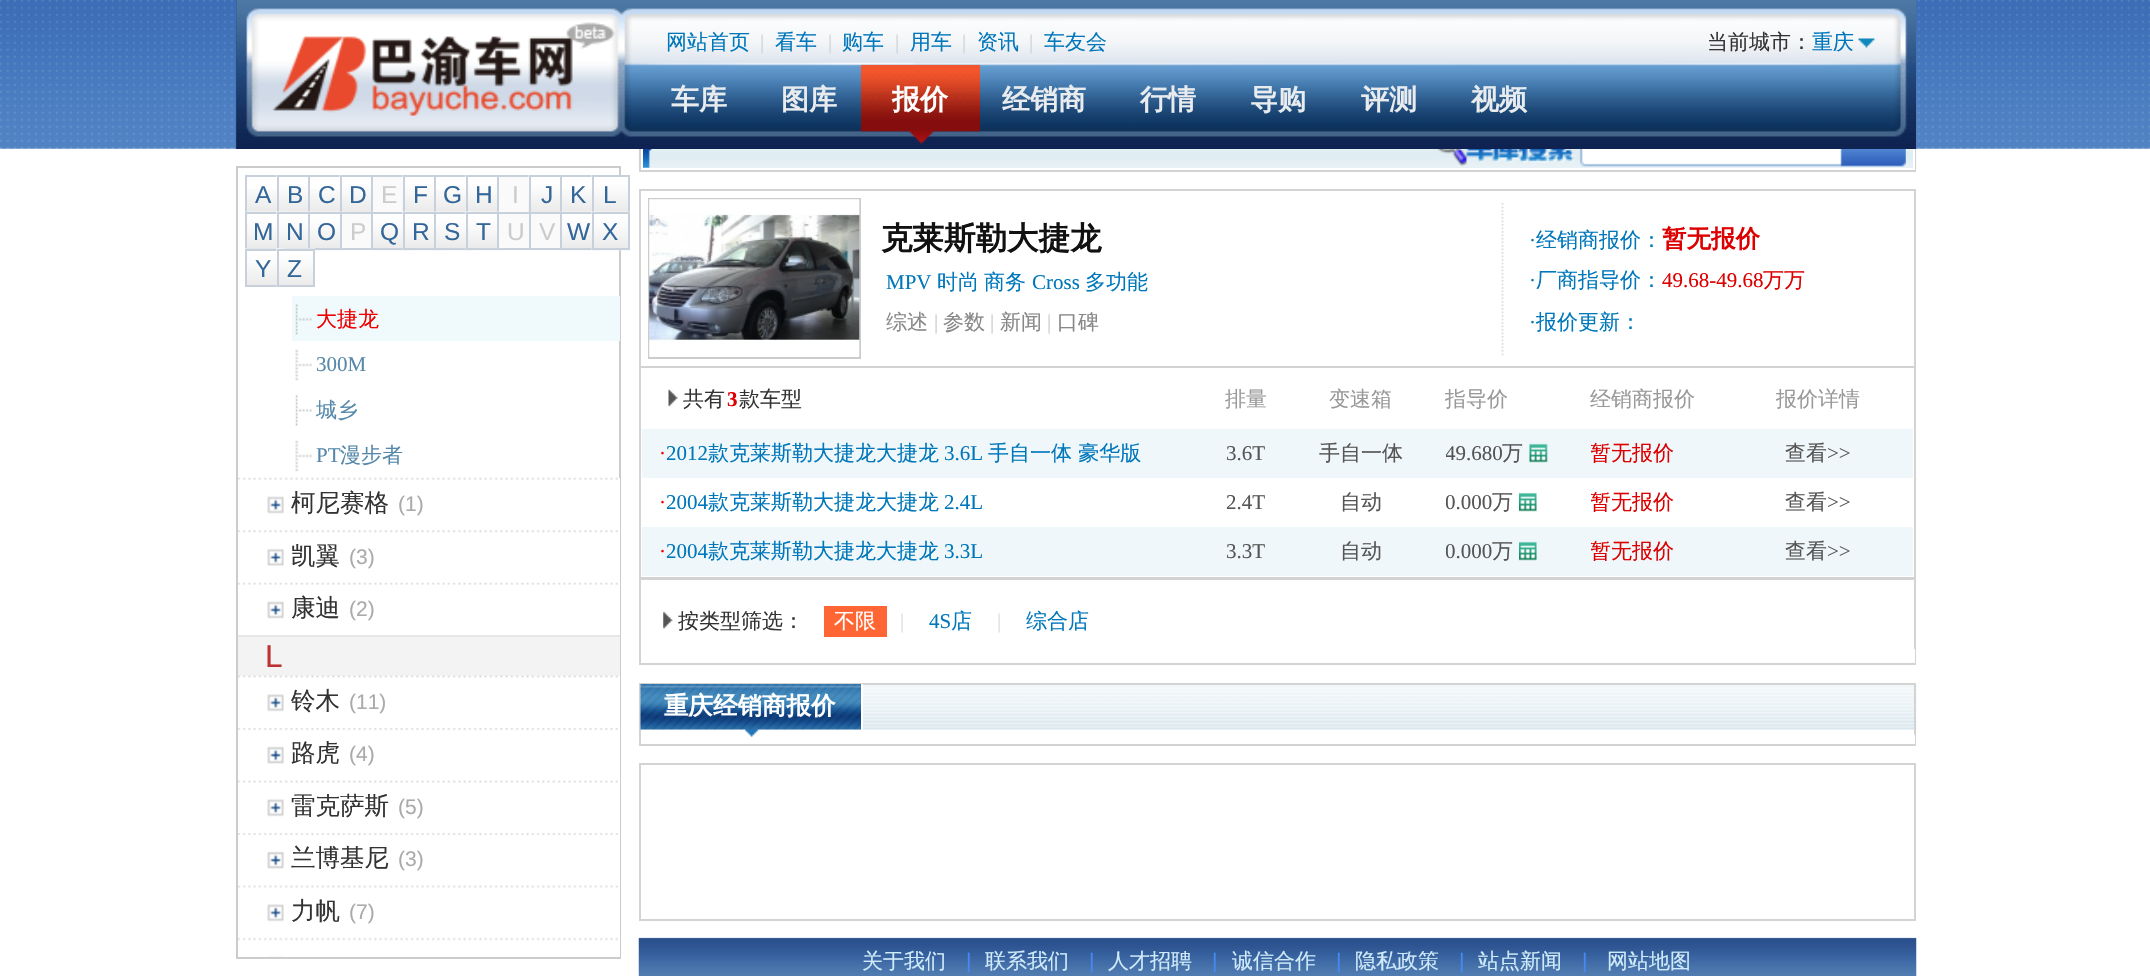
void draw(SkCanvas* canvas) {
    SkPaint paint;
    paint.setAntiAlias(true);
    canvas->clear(0xFFFFFFFF);
    canvas->drawImageRect(SkImages::DeferredFromEncodedData(SkData::MakeFromFileName("img35.png")), SkRect::MakeXYWH(638, 148, 1279, 22), SkSamplingOptions());
    paint.setStyle(SkPaint::kStroke_Style);
    paint.setStrokeWidth(2);
    paint.setColor(0xFFD3D3D3);
    canvas->drawRect(SkRect::MakeXYWH(640, 124, 1275, 47), paint);
    canvas->drawImageRect(SkImages::DeferredFromEncodedData(SkData::MakeFromFileName("img36.png")), SkRect::MakeXYWH(643, 149, 9, 19), SkSamplingOptions());
    paint.setColor(0xFFFFFFFF);
    canvas->drawRect(SkRect::MakeXYWH(642, 125, 1272, 44), paint);
    canvas->drawImageRect(SkImages::DeferredFromEncodedData(SkData::MakeFromFileName("img1.png")), SkRect::MakeXYWH(0, 0, 2150, 149), SkSamplingOptions());
    paint.setStyle(SkPaint::kFill_Style);
    paint.setColor(0xFF234D79);
    canvas->drawRect(SkRect::MakeXYWH(236, 0, 1, 149), paint);
    canvas->drawImageRect(SkImages::DeferredFromEncodedData(SkData::MakeFromFileName("img2.png")), SkRect::MakeXYWH(235, 0, 1681, 149), SkSamplingOptions());
    canvas->drawImageRect(SkImages::DeferredFromEncodedData(SkData::MakeFromFileName("img3.png")), SkRect::MakeXYWH(272, 22, 343, 94), SkSamplingOptions());
    SkFont font1(fontMgr->matchFamilyStyle("WenQuanYi Zen Hei", SkFontStyle(500, SkFontStyle::kNormal_Width, SkFontStyle::kUpright_Slant)), 21);
    font1.setSubpixel(true);
    paint.setColor(0xFF0077BB);
    canvas->drawString("网站首页", 666, 49, font1, paint);
    SkFont font2(fontMgr->matchFamilyStyle("Liberation Serif", SkFontStyle::Normal()), 21);
    font2.setSubpixel(true);
    paint.setColor(0xFFD0D3D6);
    canvas->drawString("|", 760, 49, font2, paint);
    paint.setColor(0xFF0077BB);
    canvas->drawString("看车", 775, 49, font1, paint);
    paint.setColor(0xFFD0D3D6);
    canvas->drawString("|", 828, 49, font2, paint);
    paint.setColor(0xFF0077BB);
    canvas->drawString("购车", 842, 49, font1, paint);
    paint.setColor(0xFFD0D3D6);
    canvas->drawString("|", 895, 49, font2, paint);
    paint.setColor(0xFF0077BB);
    canvas->drawString("用车", 910, 49, font1, paint);
    paint.setColor(0xFFD0D3D6);
    canvas->drawString("|", 962, 49, font2, paint);
    paint.setColor(0xFF0077BB);
    canvas->drawString("资讯", 977, 49, font1, paint);
    paint.setColor(0xFFD0D3D6);
    canvas->drawString("|", 1029, 49, font2, paint);
    paint.setColor(0xFF0077BB);
    canvas->drawString("车友会", 1044, 49, font1, paint);
    paint.setColor(0xFF333333);
    canvas->drawString("当前城市：", 1707, 49, font1, paint);
    canvas->drawImageRect(SkImages::DeferredFromEncodedData(SkData::MakeFromFileName("img4.png")), SkRect::MakeXYWH(1858, 38, 17, 10), SkSamplingOptions());
    paint.setColor(0xFF0077BB);
    canvas->drawString("重庆", 1812, 49, font1, paint);
    SkFont font3(fontMgr->matchFamilyStyle("WenQuanYi Zen Hei", SkFontStyle::Bold()), 28);
    font3.setSubpixel(true);
    paint.setColor(0xFFE9ECEF);
    canvas->drawString("车库", 671, 109, font3, paint);
    canvas->drawString("图库", 781, 109, font3, paint);
    canvas->drawImageRect(SkImages::DeferredFromEncodedData(SkData::MakeFromFileName("img5.png")), SkRect::MakeXYWH(861, 64, 119, 80), SkSamplingOptions());
    paint.setColor(0xFFFFFFFF);
    canvas->drawString("报价", 892, 109, font3, paint);
    paint.setColor(0xFFE9ECEF);
    canvas->drawString("经销商", 1002, 109, font3, paint);
    canvas->drawString("行情", 1140, 109, font3, paint);
    canvas->drawString("导购", 1250, 109, font3, paint);
    canvas->drawString("评测", 1361, 109, font3, paint);
    canvas->drawString("视频", 1471, 109, font3, paint);
    paint.setStyle(SkPaint::kStroke_Style);
    paint.setColor(0xFFCCCCCC);
    canvas->drawRect(SkRect::MakeXYWH(237, 167, 383, 791), paint);
    canvas->drawImageRect(SkImages::DeferredFromEncodedData(SkData::MakeFromFileName("img6.png")), SkRect::MakeXYWH(247, 189, 30, 23), SkSamplingOptions());
    paint.setColor(0xFFC7D0DB);
    canvas->drawRect(SkRect::MakeXYWH(246, 176, 37, 37), paint);
    SkFont font4(fontMgr->matchFamilyStyle("Liberation Sans", SkFontStyle::Normal()), 24.5f);
    font4.setSubpixel(true);
    paint.setStyle(SkPaint::kFill_Style);
    paint.setColor(0xFF336699);
    canvas->drawString("A", 255, 203, font4, paint);
    canvas->drawImageRect(SkImages::DeferredFromEncodedData(SkData::MakeFromFileName("img7.png")), SkRect::MakeXYWH(276, 175, 32, 37), SkSamplingOptions());
    paint.setStyle(SkPaint::kStroke_Style);
    paint.setColor(0xFFC7D0DB);
    canvas->drawRect(SkRect::MakeXYWH(278, 176, 36, 37), paint);
    paint.setStyle(SkPaint::kFill_Style);
    paint.setColor(0xFF336699);
    canvas->drawString("B", 287, 203, font4, paint);
    paint.setColor(0xFFFFFFFF);
    canvas->drawRect(SkRect::MakeXYWH(313, 177, 2, 12), paint);
    canvas->drawImageRect(SkImages::DeferredFromEncodedData(SkData::MakeFromFileName("img6.png")), SkRect::MakeXYWH(310, 189, 30, 23), SkSamplingOptions());
    paint.setStyle(SkPaint::kStroke_Style);
    paint.setColor(0xFFC7D0DB);
    canvas->drawRect(SkRect::MakeXYWH(309, 176, 37, 37), paint);
    paint.setStyle(SkPaint::kFill_Style);
    paint.setColor(0xFF336699);
    canvas->drawString("C", 318, 203, font4, paint);
    canvas->drawImageRect(SkImages::DeferredFromEncodedData(SkData::MakeFromFileName("img7.png")), SkRect::MakeXYWH(339, 175, 32, 37), SkSamplingOptions());
    paint.setStyle(SkPaint::kStroke_Style);
    paint.setColor(0xFFC7D0DB);
    canvas->drawRect(SkRect::MakeXYWH(341, 176, 36, 37), paint);
    paint.setStyle(SkPaint::kFill_Style);
    paint.setColor(0xFF336699);
    canvas->drawString("D", 349, 203, font4, paint);
    paint.setColor(0xFFFAFAFA);
    canvas->drawRect(SkRect::MakeXYWH(373, 177, 30, 35), paint);
    paint.setStyle(SkPaint::kStroke_Style);
    paint.setColor(0xFFC7D0DB);
    canvas->drawRect(SkRect::MakeXYWH(372, 176, 37, 37), paint);
    paint.setStyle(SkPaint::kFill_Style);
    paint.setColor(0xFFCCCCCC);
    canvas->drawString("E", 381, 203, font4, paint);
    canvas->drawImageRect(SkImages::DeferredFromEncodedData(SkData::MakeFromFileName("img8.png")), SkRect::MakeXYWH(402, 175, 32, 37), SkSamplingOptions());
    paint.setStyle(SkPaint::kStroke_Style);
    paint.setColor(0xFFC7D0DB);
    canvas->drawRect(SkRect::MakeXYWH(404, 176, 36, 37), paint);
    paint.setStyle(SkPaint::kFill_Style);
    paint.setColor(0xFF336699);
    canvas->drawString("F", 413, 203, font4, paint);
    paint.setColor(0xFFFFFFFF);
    canvas->drawRect(SkRect::MakeXYWH(439, 177, 2, 12), paint);
    canvas->drawImageRect(SkImages::DeferredFromEncodedData(SkData::MakeFromFileName("img6.png")), SkRect::MakeXYWH(436, 189, 30, 23), SkSamplingOptions());
    paint.setStyle(SkPaint::kStroke_Style);
    paint.setColor(0xFFC7D0DB);
    canvas->drawRect(SkRect::MakeXYWH(435, 176, 37, 37), paint);
    paint.setStyle(SkPaint::kFill_Style);
    paint.setColor(0xFF336699);
    canvas->drawString("G", 443, 203, font4, paint);
    canvas->drawImageRect(SkImages::DeferredFromEncodedData(SkData::MakeFromFileName("img7.png")), SkRect::MakeXYWH(465, 175, 32, 37), SkSamplingOptions());
    paint.setStyle(SkPaint::kStroke_Style);
    paint.setColor(0xFFC7D0DB);
    canvas->drawRect(SkRect::MakeXYWH(467, 176, 36, 37), paint);
    paint.setStyle(SkPaint::kFill_Style);
    paint.setColor(0xFF336699);
    canvas->drawString("H", 475, 203, font4, paint);
    paint.setColor(0xFFFAFAFA);
    canvas->drawRect(SkRect::MakeXYWH(499, 177, 30, 35), paint);
    paint.setStyle(SkPaint::kStroke_Style);
    paint.setColor(0xFFC7D0DB);
    canvas->drawRect(SkRect::MakeXYWH(498, 176, 37, 37), paint);
    paint.setStyle(SkPaint::kFill_Style);
    paint.setColor(0xFFCCCCCC);
    canvas->drawString("I", 512, 203, font4, paint);
    canvas->drawImageRect(SkImages::DeferredFromEncodedData(SkData::MakeFromFileName("img8.png")), SkRect::MakeXYWH(528, 175, 32, 37), SkSamplingOptions());
    paint.setStyle(SkPaint::kStroke_Style);
    paint.setColor(0xFFC7D0DB);
    canvas->drawRect(SkRect::MakeXYWH(530, 176, 36, 37), paint);
    paint.setStyle(SkPaint::kFill_Style);
    paint.setColor(0xFF336699);
    canvas->drawString("J", 541, 203, font4, paint);
    paint.setColor(0xFFFFFFFF);
    canvas->drawRect(SkRect::MakeXYWH(565, 177, 2, 12), paint);
    canvas->drawImageRect(SkImages::DeferredFromEncodedData(SkData::MakeFromFileName("img6.png")), SkRect::MakeXYWH(562, 189, 30, 23), SkSamplingOptions());
    paint.setStyle(SkPaint::kStroke_Style);
    paint.setColor(0xFFC7D0DB);
    canvas->drawRect(SkRect::MakeXYWH(561, 176, 37, 37), paint);
    paint.setStyle(SkPaint::kFill_Style);
    paint.setColor(0xFF336699);
    canvas->drawString("K", 570, 203, font4, paint);
    canvas->drawImageRect(SkImages::DeferredFromEncodedData(SkData::MakeFromFileName("img9.png")), SkRect::MakeXYWH(591, 175, 37, 37), SkSamplingOptions());
    paint.setStyle(SkPaint::kStroke_Style);
    paint.setColor(0xFFC7D0DB);
    canvas->drawRect(SkRect::MakeXYWH(593, 176, 36, 37), paint);
    paint.setStyle(SkPaint::kFill_Style);
    paint.setColor(0xFF336699);
    canvas->drawString("L", 603, 203, font4, paint);
    canvas->drawImageRect(SkImages::DeferredFromEncodedData(SkData::MakeFromFileName("img10.png")), SkRect::MakeXYWH(245, 211, 39, 37), SkSamplingOptions());
    paint.setStyle(SkPaint::kStroke_Style);
    paint.setColor(0xFFC7D0DB);
    canvas->drawRect(SkRect::MakeXYWH(246, 213, 37, 36), paint);
    paint.setStyle(SkPaint::kFill_Style);
    paint.setColor(0xFF336699);
    canvas->drawString("M", 253, 240, font4, paint);
    canvas->drawImageRect(SkImages::DeferredFromEncodedData(SkData::MakeFromFileName("img11.png")), SkRect::MakeXYWH(276, 211, 39, 38), SkSamplingOptions());
    paint.setStyle(SkPaint::kStroke_Style);
    paint.setColor(0xFFC7D0DB);
    canvas->drawRect(SkRect::MakeXYWH(278, 213, 36, 36), paint);
    paint.setStyle(SkPaint::kFill_Style);
    paint.setColor(0xFF336699);
    canvas->drawString("N", 286, 240, font4, paint);
    canvas->drawImageRect(SkImages::DeferredFromEncodedData(SkData::MakeFromFileName("img12.png")), SkRect::MakeXYWH(308, 211, 39, 40), SkSamplingOptions());
    paint.setStyle(SkPaint::kStroke_Style);
    paint.setColor(0xFFC7D0DB);
    canvas->drawRect(SkRect::MakeXYWH(309, 213, 37, 36), paint);
    paint.setStyle(SkPaint::kFill_Style);
    paint.setColor(0xFF336699);
    canvas->drawString("O", 317, 240, font4, paint);
    paint.setColor(0xFFFAFAFA);
    canvas->drawRect(SkRect::MakeXYWH(342, 214, 29, 34), paint);
    paint.setStyle(SkPaint::kStroke_Style);
    paint.setColor(0xFFC7D0DB);
    canvas->drawRect(SkRect::MakeXYWH(341, 213, 36, 36), paint);
    paint.setStyle(SkPaint::kFill_Style);
    paint.setColor(0xFFCCCCCC);
    canvas->drawString("P", 350, 240, font4, paint);
    canvas->drawImageRect(SkImages::DeferredFromEncodedData(SkData::MakeFromFileName("img13.png")), SkRect::MakeXYWH(371, 211, 39, 40), SkSamplingOptions());
    paint.setStyle(SkPaint::kStroke_Style);
    paint.setColor(0xFFC7D0DB);
    canvas->drawRect(SkRect::MakeXYWH(372, 213, 37, 36), paint);
    paint.setStyle(SkPaint::kFill_Style);
    paint.setColor(0xFF336699);
    canvas->drawString("Q", 380, 240, font4, paint);
    canvas->drawImageRect(SkImages::DeferredFromEncodedData(SkData::MakeFromFileName("img14.png")), SkRect::MakeXYWH(402, 211, 39, 40), SkSamplingOptions());
    paint.setStyle(SkPaint::kStroke_Style);
    paint.setColor(0xFFC7D0DB);
    canvas->drawRect(SkRect::MakeXYWH(404, 213, 36, 36), paint);
    paint.setStyle(SkPaint::kFill_Style);
    paint.setColor(0xFF336699);
    canvas->drawString("R", 412, 240, font4, paint);
    canvas->drawImageRect(SkImages::DeferredFromEncodedData(SkData::MakeFromFileName("img12.png")), SkRect::MakeXYWH(434, 211, 39, 40), SkSamplingOptions());
    paint.setStyle(SkPaint::kStroke_Style);
    paint.setColor(0xFFC7D0DB);
    canvas->drawRect(SkRect::MakeXYWH(435, 213, 37, 36), paint);
    paint.setStyle(SkPaint::kFill_Style);
    paint.setColor(0xFF336699);
    canvas->drawString("S", 444, 240, font4, paint);
    canvas->drawImageRect(SkImages::DeferredFromEncodedData(SkData::MakeFromFileName("img15.png")), SkRect::MakeXYWH(465, 211, 39, 40), SkSamplingOptions());
    paint.setStyle(SkPaint::kStroke_Style);
    paint.setColor(0xFFC7D0DB);
    canvas->drawRect(SkRect::MakeXYWH(467, 213, 36, 36), paint);
    paint.setStyle(SkPaint::kFill_Style);
    paint.setColor(0xFF336699);
    canvas->drawString("T", 476, 240, font4, paint);
    paint.setColor(0xFFFAFAFA);
    canvas->drawRect(SkRect::MakeXYWH(499, 214, 30, 34), paint);
    paint.setStyle(SkPaint::kStroke_Style);
    paint.setColor(0xFFC7D0DB);
    canvas->drawRect(SkRect::MakeXYWH(498, 213, 37, 36), paint);
    paint.setStyle(SkPaint::kFill_Style);
    paint.setColor(0xFFCCCCCC);
    canvas->drawString("U", 507, 240, font4, paint);
    paint.setColor(0xFFFAFAFA);
    canvas->drawRect(SkRect::MakeXYWH(531, 214, 29, 34), paint);
    paint.setStyle(SkPaint::kStroke_Style);
    paint.setColor(0xFFC7D0DB);
    canvas->drawRect(SkRect::MakeXYWH(530, 213, 36, 36), paint);
    paint.setStyle(SkPaint::kFill_Style);
    paint.setColor(0xFFCCCCCC);
    canvas->drawString("V", 539, 240, font4, paint);
    canvas->drawImageRect(SkImages::DeferredFromEncodedData(SkData::MakeFromFileName("img16.png")), SkRect::MakeXYWH(560, 211, 39, 40), SkSamplingOptions());
    paint.setStyle(SkPaint::kStroke_Style);
    paint.setColor(0xFFC7D0DB);
    canvas->drawRect(SkRect::MakeXYWH(561, 213, 37, 36), paint);
    paint.setStyle(SkPaint::kFill_Style);
    paint.setColor(0xFF336699);
    canvas->drawString("W", 567, 240, font4, paint);
    canvas->drawImageRect(SkImages::DeferredFromEncodedData(SkData::MakeFromFileName("img17.png")), SkRect::MakeXYWH(591, 211, 39, 40), SkSamplingOptions());
    paint.setStyle(SkPaint::kStroke_Style);
    paint.setColor(0xFFC7D0DB);
    canvas->drawRect(SkRect::MakeXYWH(593, 213, 36, 36), paint);
    paint.setStyle(SkPaint::kFill_Style);
    paint.setColor(0xFF336699);
    canvas->drawString("X", 602, 240, font4, paint);
    canvas->drawImageRect(SkImages::DeferredFromEncodedData(SkData::MakeFromFileName("img18.png")), SkRect::MakeXYWH(245, 248, 39, 37), SkSamplingOptions());
    paint.setStyle(SkPaint::kStroke_Style);
    paint.setColor(0xFFC7D0DB);
    canvas->drawRect(SkRect::MakeXYWH(246, 250, 37, 36), paint);
    paint.setStyle(SkPaint::kFill_Style);
    paint.setColor(0xFF336699);
    canvas->drawString("Y", 255, 277, font4, paint);
    canvas->drawImageRect(SkImages::DeferredFromEncodedData(SkData::MakeFromFileName("img19.png")), SkRect::MakeXYWH(276, 248, 39, 39), SkSamplingOptions());
    paint.setStyle(SkPaint::kStroke_Style);
    paint.setColor(0xFFC7D0DB);
    canvas->drawRect(SkRect::MakeXYWH(278, 250, 36, 36), paint);
    paint.setStyle(SkPaint::kFill_Style);
    paint.setColor(0xFF336699);
    canvas->drawString("Z", 287, 277, font4, paint);
    paint.setColor(0xFFF0F9FC);
    canvas->drawRect(SkRect::MakeXYWH(292, 296, 328, 45), paint);
    canvas->drawImageRect(SkImages::DeferredFromEncodedData(SkData::MakeFromFileName("img20.png")), SkRect::MakeXYWH(295, 303, 17, 32), SkSamplingOptions());
    paint.setColor(0xFFEE0000);
    canvas->drawString("大捷龙", 316, 326, font1, paint);
    canvas->drawImageRect(SkImages::DeferredFromEncodedData(SkData::MakeFromFileName("img21.png")), SkRect::MakeXYWH(295, 349, 17, 32), SkSamplingOptions());
    paint.setColor(0xFF5588AA);
    canvas->drawString("300M", 316, 371, font2, paint);
    canvas->drawImageRect(SkImages::DeferredFromEncodedData(SkData::MakeFromFileName("img22.png")), SkRect::MakeXYWH(295, 394, 17, 32), SkSamplingOptions());
    canvas->drawString("城乡", 316, 417, font1, paint);
    canvas->drawImageRect(SkImages::DeferredFromEncodedData(SkData::MakeFromFileName("img21.png")), SkRect::MakeXYWH(295, 440, 17, 32), SkSamplingOptions());
    canvas->drawString("PT", 316, 462, font2, paint);
    canvas->drawString("漫步者", 340, 462, font1, paint);
    paint.setColor(0xFFFFFFFF);
    canvas->drawRect(SkRect::MakeXYWH(619, 478, 1, 157), paint);
    canvas->drawImageRect(SkImages::DeferredFromEncodedData(SkData::MakeFromFileName("img23.png")), SkRect::MakeXYWH(238, 477, 380, 3), SkSamplingOptions());
    canvas->drawImageRect(SkImages::DeferredFromEncodedData(SkData::MakeFromFileName("img24.png")), SkRect::MakeXYWH(267, 496, 17, 18), SkSamplingOptions());
    SkFont font5(fontMgr->matchFamilyStyle("WenQuanYi Zen Hei", SkFontStyle(500, SkFontStyle::kNormal_Width, SkFontStyle::kUpright_Slant)), 24.5f);
    font5.setSubpixel(true);
    paint.setColor(0xFF333333);
    canvas->drawString("柯尼赛格", 291, 511, font5, paint);
    SkFont font6(fontMgr->matchFamilyStyle("Liberation Sans", SkFontStyle::Normal()), 21);
    font6.setSubpixel(true);
    paint.setColor(0xFFAAAAAA);
    canvas->drawString("(1)", 398, 511, font6, paint);
    canvas->drawImageRect(SkImages::DeferredFromEncodedData(SkData::MakeFromFileName("img25.png")), SkRect::MakeXYWH(238, 530, 380, 3), SkSamplingOptions());
    canvas->drawImageRect(SkImages::DeferredFromEncodedData(SkData::MakeFromFileName("img26.png")), SkRect::MakeXYWH(267, 548, 17, 18), SkSamplingOptions());
    paint.setColor(0xFF333333);
    canvas->drawString("凯翼", 291, 564, font5, paint);
    paint.setColor(0xFFAAAAAA);
    canvas->drawString("(3)", 349, 564, font6, paint);
    canvas->drawImageRect(SkImages::DeferredFromEncodedData(SkData::MakeFromFileName("img23.png")), SkRect::MakeXYWH(238, 582, 380, 3), SkSamplingOptions());
    canvas->drawImageRect(SkImages::DeferredFromEncodedData(SkData::MakeFromFileName("img24.png")), SkRect::MakeXYWH(267, 601, 17, 18), SkSamplingOptions());
    paint.setColor(0xFF333333);
    canvas->drawString("康迪", 291, 616, font5, paint);
    paint.setColor(0xFFAAAAAA);
    canvas->drawString("(2)", 349, 616, font6, paint);
    paint.setColor(0xFFF3F3F3);
    canvas->drawRect(SkRect::MakeXYWH(238, 637, 382, 39), paint);
    paint.setColor(0xFFE6E6E6);
    canvas->drawRect(SkRect::MakeXYWH(238, 635, 382, 2), paint);
    SkFont font7(fontMgr->matchFamilyStyle("Liberation Sans", SkFontStyle::Normal()), 31.5f);
    font7.setSubpixel(true);
    paint.setColor(0xFFBB3333);
    canvas->drawString("L", 265, 667, font7, paint);
    paint.setColor(0xFFFFFFFF);
    canvas->drawRect(SkRect::MakeXYWH(619, 676, 1, 281), paint);
    canvas->drawImageRect(SkImages::DeferredFromEncodedData(SkData::MakeFromFileName("img27.png")), SkRect::MakeXYWH(238, 675, 380, 3), SkSamplingOptions());
    canvas->drawImageRect(SkImages::DeferredFromEncodedData(SkData::MakeFromFileName("img28.png")), SkRect::MakeXYWH(267, 694, 17, 18), SkSamplingOptions());
    paint.setColor(0xFF333333);
    canvas->drawString("铃木", 291, 709, font5, paint);
    paint.setColor(0xFFAAAAAA);
    canvas->drawString("(11)", 349, 709, font6, paint);
    canvas->drawImageRect(SkImages::DeferredFromEncodedData(SkData::MakeFromFileName("img29.png")), SkRect::MakeXYWH(238, 728, 380, 3), SkSamplingOptions());
    canvas->drawImageRect(SkImages::DeferredFromEncodedData(SkData::MakeFromFileName("img30.png")), SkRect::MakeXYWH(267, 746, 17, 18), SkSamplingOptions());
    paint.setColor(0xFF333333);
    canvas->drawString("路虎", 291, 761, font5, paint);
    paint.setColor(0xFFAAAAAA);
    canvas->drawString("(4)", 349, 761, font6, paint);
    canvas->drawImageRect(SkImages::DeferredFromEncodedData(SkData::MakeFromFileName("img31.png")), SkRect::MakeXYWH(238, 780, 380, 3), SkSamplingOptions());
    canvas->drawImageRect(SkImages::DeferredFromEncodedData(SkData::MakeFromFileName("img28.png")), SkRect::MakeXYWH(267, 799, 17, 18), SkSamplingOptions());
    paint.setColor(0xFF333333);
    canvas->drawString("雷克萨斯", 291, 814, font5, paint);
    paint.setColor(0xFFAAAAAA);
    canvas->drawString("(5)", 398, 814, font6, paint);
    canvas->drawImageRect(SkImages::DeferredFromEncodedData(SkData::MakeFromFileName("img29.png")), SkRect::MakeXYWH(238, 833, 380, 3), SkSamplingOptions());
    canvas->drawImageRect(SkImages::DeferredFromEncodedData(SkData::MakeFromFileName("img30.png")), SkRect::MakeXYWH(267, 851, 17, 18), SkSamplingOptions());
    paint.setColor(0xFF333333);
    canvas->drawString("兰博基尼", 291, 866, font5, paint);
    paint.setColor(0xFFAAAAAA);
    canvas->drawString("(3)", 398, 866, font6, paint);
    canvas->drawImageRect(SkImages::DeferredFromEncodedData(SkData::MakeFromFileName("img32.png")), SkRect::MakeXYWH(238, 885, 380, 3), SkSamplingOptions());
    canvas->drawImageRect(SkImages::DeferredFromEncodedData(SkData::MakeFromFileName("img28.png")), SkRect::MakeXYWH(267, 904, 17, 18), SkSamplingOptions());
    paint.setColor(0xFF333333);
    canvas->drawString("力帆", 291, 919, font5, paint);
    paint.setColor(0xFFAAAAAA);
    canvas->drawString("(7)", 349, 919, font6, paint);
    canvas->drawImageRect(SkImages::DeferredFromEncodedData(SkData::MakeFromFileName("img33.png")), SkRect::MakeXYWH(238, 937, 380, 4), SkSamplingOptions());
    canvas->drawImageRect(SkImages::DeferredFromEncodedData(SkData::MakeFromFileName("img34.png")), SkRect::MakeXYWH(268, 956, 15, 1), SkSamplingOptions());
    canvas->drawImageRect(SkImages::DeferredFromEncodedData(SkData::MakeFromFileName("img37.png")), SkRect::MakeXYWH(1433, 149, 473, 18), SkSamplingOptions());
    paint.setColor(0xFFFFFFFF);
    canvas->drawRect(SkRect::MakeXYWH(1584, 162, 2, 1), paint);
    paint.setStyle(SkPaint::kStroke_Style);
    paint.setColor(0xFFD3D3D3);
    canvas->drawRect(SkRect::MakeXYWH(640, 190, 1275, 177), paint);
    paint.setColor(0xFFCCCCCC);
    canvas->drawRect(SkRect::MakeXYWH(649, 199, 211, 159), paint);
    canvas->drawImageRect(SkImages::DeferredFromEncodedData(SkData::MakeFromFileName("img38.png")), SkRect::MakeXYWH(649, 199, 211, 158), SkSamplingOptions());
    SkFont font8(fontMgr->matchFamilyStyle("WenQuanYi Zen Hei", SkFontStyle::Bold()), 31.5f);
    font8.setSubpixel(true);
    paint.setStyle(SkPaint::kFill_Style);
    paint.setColor(0xFF111111);
    canvas->drawString("克莱斯勒大捷龙", 881, 249, font8, paint);
    paint.setColor(0xFF0077BB);
    canvas->drawString("MPV", 886, 289, font2, paint);
    canvas->drawString("时尚", 937, 289, font1, paint);
    canvas->drawString("商务", 984, 289, font1, paint);
    canvas->drawString("Cross", 1032, 289, font2, paint);
    canvas->drawString("多功能", 1085, 289, font1, paint);
    paint.setColor(0xFF888888);
    canvas->drawString("综述", 886, 329, font1, paint);
    paint.setColor(0xFFCCCCCC);
    canvas->drawString("|", 934, 329, font2, paint);
    paint.setColor(0xFF888888);
    canvas->drawString("参数", 943, 329, font1, paint);
    paint.setColor(0xFFCCCCCC);
    canvas->drawString("|", 990, 329, font2, paint);
    paint.setColor(0xFF888888);
    canvas->drawString("新闻", 1000, 329, font1, paint);
    paint.setColor(0xFFCCCCCC);
    canvas->drawString("|", 1047, 329, font2, paint);
    paint.setColor(0xFF888888);
    canvas->drawString("口碑", 1057, 329, font1, paint);
    paint.setStyle(SkPaint::kStroke_Style);
    paint.setStrokeWidth(1.8f);
    paint.setColor(0xFFDDDDDD);
    paint.setPathEffect(SkDashPathEffect::Make({{1.75f, 1.75f}}, 0));
    canvas->drawPath(SkPathBuilder().moveTo(1502.5f, 203).lineTo(1502.5f, 357).detach(), paint);
    paint.setPathEffect(nullptr);
    paint.setStyle(SkPaint::kFill_Style);
    paint.setColor(0xFF0077BB);
    canvas->drawString("·", 1529, 247, font2, paint);
    canvas->drawString("经销商报价：", 1536, 247, font1, paint);
    SkFont font9(fontMgr->matchFamilyStyle("WenQuanYi Zen Hei", SkFontStyle::Bold()), 24.5f);
    font9.setSubpixel(true);
    paint.setColor(0xFFDD0000);
    canvas->drawString("暂无报价", 1662, 247, font9, paint);
    paint.setColor(0xFF0077BB);
    canvas->drawString("·", 1529, 287, font2, paint);
    canvas->drawString("厂商指导价：", 1536, 287, font1, paint);
    paint.setColor(0xFFDD0000);
    canvas->drawString("49.68-49.68", 1662, 287, font2, paint);
    canvas->drawString("万万", 1763, 287, font1, paint);
    paint.setColor(0xFF0077BB);
    canvas->drawString("·", 1529, 329, font2, paint);
    canvas->drawString("报价更新：", 1536, 329, font1, paint);
    paint.setStyle(SkPaint::kStroke_Style);
    paint.setStrokeWidth(2);
    paint.setColor(0xFFD3D3D3);
    canvas->drawRect(SkRect::MakeXYWH(640, 367, 1275, 211), paint);
    canvas->drawImageRect(SkImages::DeferredFromEncodedData(SkData::MakeFromFileName("img39.png")), SkRect::MakeXYWH(668, 389, 10, 18), SkSamplingOptions());
    paint.setStyle(SkPaint::kFill_Style);
    paint.setColor(0xFF333333);
    canvas->drawString("共有", 683, 406, font1, paint);
    SkFont font10(fontMgr->matchFamilyStyle("Liberation Serif", SkFontStyle::Bold()), 21);
    font10.setSubpixel(true);
    paint.setColor(0xFFDD0000);
    canvas->drawString("3", 727, 406, font10, paint);
    paint.setColor(0xFF333333);
    canvas->drawString("款车型", 739, 406, font1, paint);
    paint.setColor(0xFF999999);
    canvas->drawString("排量", 1225, 406, font1, paint);
    canvas->drawString("变速箱", 1329, 406, font1, paint);
    canvas->drawString("指导价", 1445, 406, font1, paint);
    canvas->drawString("经销商报价", 1590, 406, font1, paint);
    canvas->drawString("报价详情", 1776, 406, font1, paint);
    paint.setColor(0xFFF0F7FA);
    canvas->drawRect(SkRect::MakeXYWH(642, 429, 1271, 49), paint);
    paint.setColor(0xFFEE0000);
    canvas->drawString("·", 659, 460, font2, paint);
    paint.setColor(0xFF0077BB);
    canvas->drawString("2012", 666, 460, font2, paint);
    canvas->drawString("款克莱斯勒大捷龙大捷龙", 708, 460, font1, paint);
    canvas->drawString("3.6L", 944, 460, font2, paint);
    canvas->drawString("手自一体 豪华版", 988, 460, font1, paint);
    paint.setColor(0xFF555555);
    canvas->drawString("3.6T", 1226, 460, font2, paint);
    canvas->drawString("手自一体", 1319, 460, font1, paint);
    canvas->save();
    canvas->clipRect(SkRect::MakeXYWH(1446, 429, 140, 49));
    canvas->drawString("49.680", 1445, 460, font2, paint);
    canvas->restore();
    canvas->drawString("万", 1502, 460, font1, paint);
    canvas->drawImageRect(SkImages::DeferredFromEncodedData(SkData::MakeFromFileName("img40.png")), SkRect::MakeXYWH(1529, 443, 19, 20), SkSamplingOptions());
    canvas->save();
    canvas->clipRect(SkRect::MakeXYWH(1591, 429, 175, 49));
    paint.setColor(0xFFDD0000);
    canvas->drawString("暂无报价", 1590, 460, font1, paint);
    canvas->restore();
    paint.setColor(0xFF555555);
    canvas->drawString("查看", 1785, 460, font1, paint);
    canvas->drawString(">>", 1827, 460, font2, paint);
    paint.setColor(0xFFEE0000);
    canvas->drawString("·", 659, 509, font2, paint);
    paint.setColor(0xFF0077BB);
    canvas->drawString("2004", 666, 509, font2, paint);
    canvas->drawString("款克莱斯勒大捷龙大捷龙", 708, 509, font1, paint);
    canvas->drawString("2.4L", 944, 509, font2, paint);
    paint.setColor(0xFF555555);
    canvas->drawString("2.4T", 1226, 509, font2, paint);
    canvas->drawString("自动", 1340, 509, font1, paint);
    canvas->save();
    canvas->clipRect(SkRect::MakeXYWH(1446, 478, 140, 49));
    canvas->drawString("0.000", 1445, 509, font2, paint);
    canvas->restore();
    canvas->drawString("万", 1492, 509, font1, paint);
    canvas->drawImageRect(SkImages::DeferredFromEncodedData(SkData::MakeFromFileName("img41.png")), SkRect::MakeXYWH(1519, 492, 18, 20), SkSamplingOptions());
    canvas->save();
    canvas->clipRect(SkRect::MakeXYWH(1591, 478, 175, 49));
    paint.setColor(0xFFDD0000);
    canvas->drawString("暂无报价", 1590, 509, font1, paint);
    canvas->restore();
    paint.setColor(0xFF555555);
    canvas->drawString("查看", 1785, 509, font1, paint);
    canvas->drawString(">>", 1827, 509, font2, paint);
    paint.setColor(0xFFF0F7FA);
    canvas->drawRect(SkRect::MakeXYWH(642, 527, 1271, 49), paint);
    paint.setColor(0xFFEE0000);
    canvas->drawString("·", 659, 558, font2, paint);
    paint.setColor(0xFF0077BB);
    canvas->drawString("2004", 666, 558, font2, paint);
    canvas->drawString("款克莱斯勒大捷龙大捷龙", 708, 558, font1, paint);
    canvas->drawString("3.3L", 944, 558, font2, paint);
    paint.setColor(0xFF555555);
    canvas->drawString("3.3T", 1226, 558, font2, paint);
    canvas->drawString("自动", 1340, 558, font1, paint);
    canvas->save();
    canvas->clipRect(SkRect::MakeXYWH(1446, 527, 140, 49));
    canvas->drawString("0.000", 1445, 558, font2, paint);
    canvas->restore();
    canvas->drawString("万", 1492, 558, font1, paint);
    canvas->drawImageRect(SkImages::DeferredFromEncodedData(SkData::MakeFromFileName("img42.png")), SkRect::MakeXYWH(1519, 541, 18, 20), SkSamplingOptions());
    canvas->save();
    canvas->clipRect(SkRect::MakeXYWH(1591, 527, 175, 49));
    paint.setColor(0xFFDD0000);
    canvas->drawString("暂无报价", 1590, 558, font1, paint);
    canvas->restore();
    paint.setColor(0xFF555555);
    canvas->drawString("查看", 1785, 558, font1, paint);
    canvas->drawString(">>", 1827, 558, font2, paint);
    paint.setStyle(SkPaint::kStroke_Style);
    paint.setColor(0xFFD3D3D3);
    canvas->drawRect(SkRect::MakeXYWH(640, 579, 1275, 85), paint);
    canvas->drawImageRect(SkImages::DeferredFromEncodedData(SkData::MakeFromFileName("img43.png")), SkRect::MakeXYWH(663, 611, 10, 18), SkSamplingOptions());
    paint.setStyle(SkPaint::kFill_Style);
    paint.setColor(0xFF333333);
    canvas->drawString("按类型筛选：", 678, 628, font1, paint);
    paint.setColor(0xFFFFFFFF);
    canvas->drawRect(SkRect::MakeXYWH(1914, 649, 1, 14), paint);
    paint.setColor(0xFFFF6633);
    canvas->drawRect(SkRect::MakeXYWH(824, 606, 63, 31), paint);
    paint.setColor(0xFFFFFFFF);
    canvas->drawString("不限", 834, 628, font1, paint);
    paint.setColor(0xFFDDDDDD);
    canvas->drawString("|", 900, 628, font2, paint);
    paint.setColor(0xFF0077BB);
    canvas->drawString("4S", 929, 628, font2, paint);
    canvas->drawString("店", 951, 628, font1, paint);
    paint.setColor(0xFFDDDDDD);
    canvas->drawString("|", 997, 628, font2, paint);
    paint.setColor(0xFF0077BB);
    canvas->drawString("综合店", 1026, 628, font1, paint);
    canvas->drawImageRect(SkImages::DeferredFromEncodedData(SkData::MakeFromFileName("img44.png")), SkRect::MakeXYWH(638, 684, 1279, 46), SkSamplingOptions());
    paint.setStyle(SkPaint::kStroke_Style);
    paint.setColor(0xFFD3D3D3);
    canvas->drawRect(SkRect::MakeXYWH(640, 684, 1275, 61), paint);
    canvas->drawImageRect(SkImages::DeferredFromEncodedData(SkData::MakeFromFileName("img45.png")), SkRect::MakeXYWH(640, 684, 221, 53), SkSamplingOptions());
    paint.setStyle(SkPaint::kFill_Style);
    paint.setColor(0xFFFFFFFF);
    canvas->drawRect(SkRect::MakeXYWH(861, 684, 2, 53), paint);
    canvas->drawString("重庆经销商报价", 664, 714, font9, paint);
    canvas->drawRect(SkRect::MakeXYWH(1914, 735, 1, 9), paint);
    paint.setStyle(SkPaint::kStroke_Style);
    paint.setColor(0xFFD3D3D3);
    canvas->drawRect(SkRect::MakeXYWH(640, 764, 1275, 156), paint);
    canvas->drawImageRect(SkImages::DeferredFromEncodedData(SkData::MakeFromFileName("img46.png")), SkRect::MakeXYWH(638, 937, 1279, 39), SkSamplingOptions());
    paint.setStyle(SkPaint::kFill_Style);
    paint.setColor(0xFFCFEAF9);
    canvas->drawString("关于我们", 862, 968, font1, paint);
    paint.setColor(0xFF4688F4);
    canvas->drawString("|", 966, 968, font6, paint);
    paint.setColor(0xFFCFEAF9);
    canvas->drawString("联系我们", 985, 968, font1, paint);
    paint.setColor(0xFF4688F4);
    canvas->drawString("|", 1089, 968, font6, paint);
    paint.setColor(0xFFCFEAF9);
    canvas->drawString("人才招聘", 1108, 968, font1, paint);
    paint.setColor(0xFF4688F4);
    canvas->drawString("|", 1212, 968, font6, paint);
    paint.setColor(0xFFCFEAF9);
    canvas->drawString("诚信合作", 1232, 968, font1, paint);
    paint.setColor(0xFF4688F4);
    canvas->drawString("|", 1336, 968, font6, paint);
    paint.setColor(0xFFCFEAF9);
    canvas->drawString("隐私政策", 1355, 968, font1, paint);
    paint.setColor(0xFF4688F4);
    canvas->drawString("|", 1459, 968, font6, paint);
    paint.setColor(0xFFCFEAF9);
    canvas->drawString("站点新闻", 1478, 968, font1, paint);
    paint.setColor(0xFF4688F4);
    canvas->drawString("|", 1582, 968, font6, paint);
    paint.setColor(0xFFCFEAF9);
    canvas->drawString("网站地图", 1607, 968, font1, paint);
}
